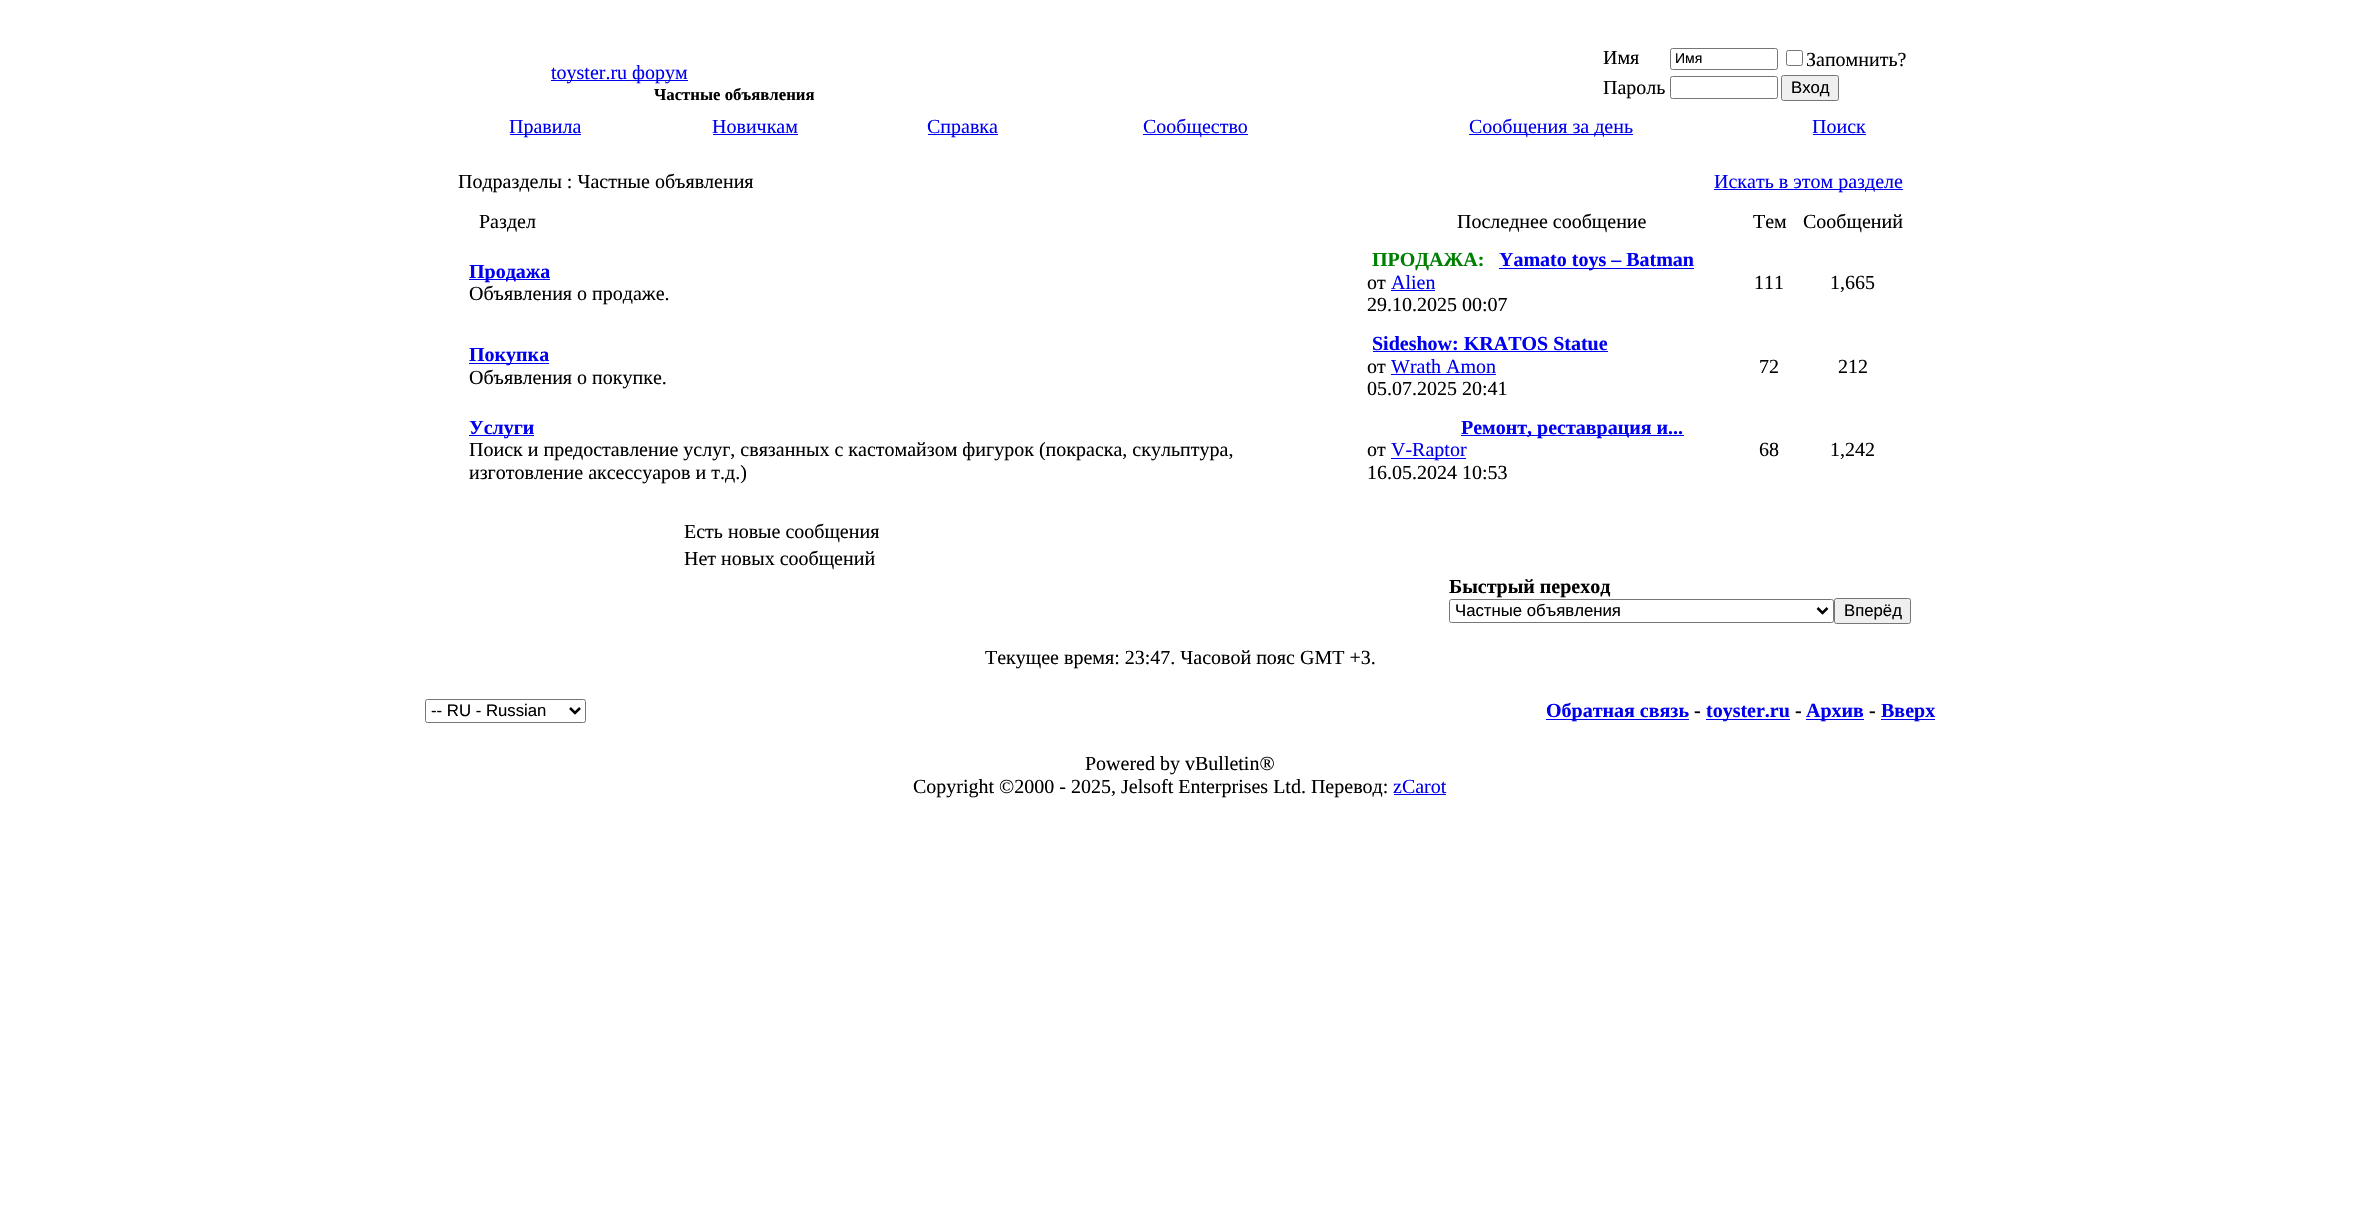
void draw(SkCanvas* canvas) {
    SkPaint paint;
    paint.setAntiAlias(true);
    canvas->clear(0xFFFFFFFF);
    paint.setColor(0xFF0000EE);
    canvas->drawRect(SkRect::MakeXYWH(551, 80, 137, 1), paint);
    SkFont font1(fontMgr->matchFamilyStyle("Liberation Serif", SkFontStyle::Normal()), 20);
    font1.setSubpixel(true);
    canvas->drawString("toyster.ru форум", 551, 79, font1, paint);
    SkFont font2(fontMgr->matchFamilyStyle("Liberation Serif", SkFontStyle::Bold()), 16.75f);
    font2.setSubpixel(true);
    paint.setColor(0xFF000000);
    canvas->drawString("Частные объявления", 654, 100, font2, paint);
    canvas->drawString("Имя", 1603, 64, font1, paint);
    paint.setStyle(SkPaint::kStroke_Style);
    paint.setStrokeWidth(1);
    paint.setColor(0xFF767676);
    canvas->drawRoundRect(SkRect::MakeXYWH(1670.5f, 48.5f, 107, 21), 2, 2, paint);
    SkFont font3(fontMgr->matchFamilyStyle("Liberation Sans", SkFontStyle::Normal()), 14);
    font3.setSubpixel(true);
    paint.setStyle(SkPaint::kFill_Style);
    paint.setColor(0xFF000000);
    canvas->drawString("Имя", 1675, 63, font3, paint);
    paint.setStyle(SkPaint::kStroke_Style);
    paint.setColor(0xFF767676);
    canvas->drawRoundRect(SkRect::MakeXYWH(1786.5f, 50.5f, 16, 15), 2, 2, paint);
    paint.setStyle(SkPaint::kFill_Style);
    paint.setColor(0xFF000000);
    canvas->drawString("Запомнить?", 1806, 66, font1, paint);
    canvas->drawString("Пароль", 1603, 94, font1, paint);
    paint.setStyle(SkPaint::kStroke_Style);
    paint.setColor(0xFF767676);
    canvas->drawRoundRect(SkRect::MakeXYWH(1670.5f, 76.5f, 107, 22), 2, 2, paint);
    paint.setStyle(SkPaint::kFill_Style);
    paint.setColor(0xFFEFEFEF);
    canvas->drawRoundRect(SkRect::MakeXYWH(1781.5f, 75.5f, 57, 25), 2, 2, paint);
    paint.setStyle(SkPaint::kStroke_Style);
    paint.setColor(0xFF767676);
    canvas->drawRoundRect(SkRect::MakeXYWH(1781.5f, 75.5f, 57, 25), 2, 2, paint);
    SkFont font4(fontMgr->matchFamilyStyle("Liberation Sans", SkFontStyle::Normal()), 16.75f);
    font4.setSubpixel(true);
    paint.setStyle(SkPaint::kFill_Style);
    paint.setColor(0xFF000000);
    canvas->drawString("Вход", 1791, 93, font4, paint);
    paint.setColor(0xFF0000EE);
    canvas->drawRect(SkRect::MakeXYWH(510, 134, 71, 1), paint);
    canvas->drawString("Правила", 509, 133, font1, paint);
    canvas->drawString("Новичкам", 712, 133, font1, paint);
    canvas->drawRect(SkRect::MakeXYWH(713, 134, 85, 1), paint);
    canvas->drawRect(SkRect::MakeXYWH(928, 134, 70, 1), paint);
    canvas->drawString("Справка", 927, 133, font1, paint);
    canvas->drawRect(SkRect::MakeXYWH(1143, 134, 105, 1), paint);
    canvas->drawString("Сообщество", 1143, 133, font1, paint);
    canvas->drawRect(SkRect::MakeXYWH(1469, 134, 164, 1), paint);
    canvas->drawString("Сообщения за день", 1469, 133, font1, paint);
    canvas->drawString("Поиск", 1812, 133, font1, paint);
    canvas->drawRect(SkRect::MakeXYWH(1813, 134, 53, 1), paint);
    paint.setColor(0xFF000000);
    canvas->drawString("Подразделы : Частные объявления", 458, 188, font1, paint);
    paint.setColor(0xFF0000EE);
    canvas->drawRect(SkRect::MakeXYWH(1714, 189, 189, 1), paint);
    canvas->drawString("Искать в этом разделе", 1714, 188, font1, paint);
    paint.setColor(0xFF000000);
    canvas->drawString("Раздел", 479, 228, font1, paint);
    canvas->drawString("Последнее сообщение", 1457, 228, font1, paint);
    canvas->drawString("Тем", 1753, 228, font1, paint);
    canvas->drawString("Сообщений", 1803, 228, font1, paint);
    paint.setColor(0xFF0000EE);
    canvas->drawRect(SkRect::MakeXYWH(469, 279, 81, 1), paint);
    SkFont font5(fontMgr->matchFamilyStyle("Liberation Serif", SkFontStyle::Bold()), 20);
    font5.setSubpixel(true);
    canvas->drawString("Продажа", 469, 278, font5, paint);
    paint.setColor(0xFF000000);
    canvas->drawString("Объявления о продаже.", 469, 300, font1, paint);
    paint.setColor(0xFF008000);
    canvas->drawString("ПРОДАЖА:", 1372, 266, font5, paint);
    paint.setColor(0xFF0000EE);
    canvas->drawRect(SkRect::MakeXYWH(1499, 268, 195, 1), paint);
    canvas->drawString("Yamato toys – Batman", 1499, 266, font5, paint);
    paint.setColor(0xFF000000);
    canvas->drawString("от", 1367, 289, font1, paint);
    paint.setColor(0xFF0000EE);
    canvas->drawString("Alien", 1391, 289, font1, paint);
    canvas->drawRect(SkRect::MakeXYWH(1391, 290, 44, 1), paint);
    paint.setColor(0xFF000000);
    canvas->drawString("29.10.2025 00:07", 1367, 311, font1, paint);
    canvas->drawString("111", 1754, 289, font1, paint);
    canvas->drawString("1,665", 1830, 289, font1, paint);
    paint.setColor(0xFF0000EE);
    canvas->drawRect(SkRect::MakeXYWH(469, 363, 80, 1), paint);
    canvas->drawString("Покупка", 469, 361, font5, paint);
    paint.setColor(0xFF000000);
    canvas->drawString("Объявления о покупке.", 469, 384, font1, paint);
    paint.setColor(0xFF0000EE);
    canvas->drawString("Sideshow: KRATOS Statue", 1372, 350, font5, paint);
    canvas->drawRect(SkRect::MakeXYWH(1373, 351, 235, 1), paint);
    paint.setColor(0xFF000000);
    canvas->drawString("от", 1367, 373, font1, paint);
    paint.setColor(0xFF0000EE);
    canvas->drawString("Wrath Amon", 1391, 373, font1, paint);
    canvas->drawRect(SkRect::MakeXYWH(1391, 374, 105, 1), paint);
    paint.setColor(0xFF000000);
    canvas->drawString("05.07.2025 20:41", 1367, 395, font1, paint);
    canvas->drawString("72", 1759, 373, font1, paint);
    canvas->drawString("212", 1838, 373, font1, paint);
    paint.setColor(0xFF0000EE);
    canvas->drawRect(SkRect::MakeXYWH(469, 435, 65, 1), paint);
    canvas->drawString("Услуги", 469, 434, font5, paint);
    paint.setColor(0xFF000000);
    canvas->drawString("Поиск и предоставление услуг, связанных с кастомайзом фигурок (покраска, скульптура,", 469, 456, font1, paint);
    canvas->drawString("изготовление аксессуаров и т.д.)", 469, 479, font1, paint);
    paint.setColor(0xFF0000EE);
    canvas->drawRect(SkRect::MakeXYWH(1461, 435, 223, 1), paint);
    canvas->drawString("Ремонт, реставрация и...", 1461, 434, font5, paint);
    paint.setColor(0xFF000000);
    canvas->drawString("от", 1367, 456, font1, paint);
    paint.setColor(0xFF0000EE);
    canvas->drawRect(SkRect::MakeXYWH(1391, 458, 75, 1), paint);
    canvas->drawString("V-Raptor", 1391, 456, font1, paint);
    paint.setColor(0xFF000000);
    canvas->drawString("16.05.2024 10:53", 1367, 479, font1, paint);
    canvas->drawString("68", 1759, 456, font1, paint);
    canvas->drawString("1,242", 1830, 456, font1, paint);
    canvas->drawString("Есть новые сообщения", 684, 538, font1, paint);
    canvas->drawString("Нет новых сообщений", 684, 565, font1, paint);
    canvas->drawString("Быстрый переход", 1449, 593, font5, paint);
    paint.setStyle(SkPaint::kStroke_Style);
    paint.setColor(0xFF767676);
    canvas->drawRoundRect(SkRect::MakeXYWH(1449.5f, 599.5f, 384, 23), 2, 2, paint);
    paint.setStrokeWidth(2.5f);
    paint.setColor(0xFF000000);
    canvas->drawPath(SkPathBuilder().moveTo(1817.5f, 608).lineTo(1822.5f, 613).lineTo(1827.5f, 608).detach(), paint);
    paint.setStyle(SkPaint::kFill_Style);
    canvas->drawString("Частные объявления", 1455, 616, font4, paint);
    paint.setColor(0xFFEFEFEF);
    canvas->drawRoundRect(SkRect::MakeXYWH(1834.5f, 598.5f, 76, 25), 2, 2, paint);
    paint.setStyle(SkPaint::kStroke_Style);
    paint.setStrokeWidth(1);
    paint.setColor(0xFF767676);
    canvas->drawRoundRect(SkRect::MakeXYWH(1834.5f, 598.5f, 76, 25), 2, 2, paint);
    paint.setStyle(SkPaint::kFill_Style);
    paint.setColor(0xFF000000);
    canvas->drawString("Вперёд", 1844, 616, font4, paint);
    canvas->drawString("Текущее время: 23:47. Часовой пояс GMT +3.", 985, 664, font1, paint);
    paint.setStyle(SkPaint::kStroke_Style);
    paint.setColor(0xFF767676);
    canvas->drawRoundRect(SkRect::MakeXYWH(425.5f, 699.5f, 160, 23), 2, 2, paint);
    paint.setStrokeWidth(2.5f);
    paint.setColor(0xFF000000);
    canvas->drawPath(SkPathBuilder().moveTo(570, 708).lineTo(575, 713).lineTo(580, 708).detach(), paint);
    paint.setStyle(SkPaint::kFill_Style);
    canvas->drawString("-- RU - Russian", 431, 716, font4, paint);
    paint.setColor(0xFF0000EE);
    canvas->drawRect(SkRect::MakeXYWH(1546, 719, 143, 1), paint);
    canvas->drawString("Обратная связь", 1546, 717, font5, paint);
    paint.setColor(0xFF000000);
    canvas->drawString("-", 1694, 717, font5, paint);
    paint.setColor(0xFF0000EE);
    canvas->drawRect(SkRect::MakeXYWH(1706, 719, 84, 1), paint);
    canvas->drawString("toyster.ru", 1706, 717, font5, paint);
    paint.setColor(0xFF000000);
    canvas->drawString("-", 1795, 717, font5, paint);
    paint.setColor(0xFF0000EE);
    canvas->drawRect(SkRect::MakeXYWH(1806, 719, 58, 1), paint);
    canvas->drawString("Архив", 1806, 717, font5, paint);
    paint.setColor(0xFF000000);
    canvas->drawString("-", 1869, 717, font5, paint);
    paint.setColor(0xFF0000EE);
    canvas->drawRect(SkRect::MakeXYWH(1881, 719, 54, 1), paint);
    canvas->drawString("Вверх", 1881, 717, font5, paint);
    paint.setColor(0xFF000000);
    canvas->drawString("Powered by vBulletin®", 1085, 770, font1, paint);
    canvas->drawString("Copyright ©2000 - 2025, Jelsoft Enterprises Ltd. Перевод:", 913, 793, font1, paint);
    paint.setColor(0xFF0000EE);
    canvas->drawString("zCarot", 1393, 793, font1, paint);
    canvas->drawRect(SkRect::MakeXYWH(1394, 794, 52, 1), paint);
}
